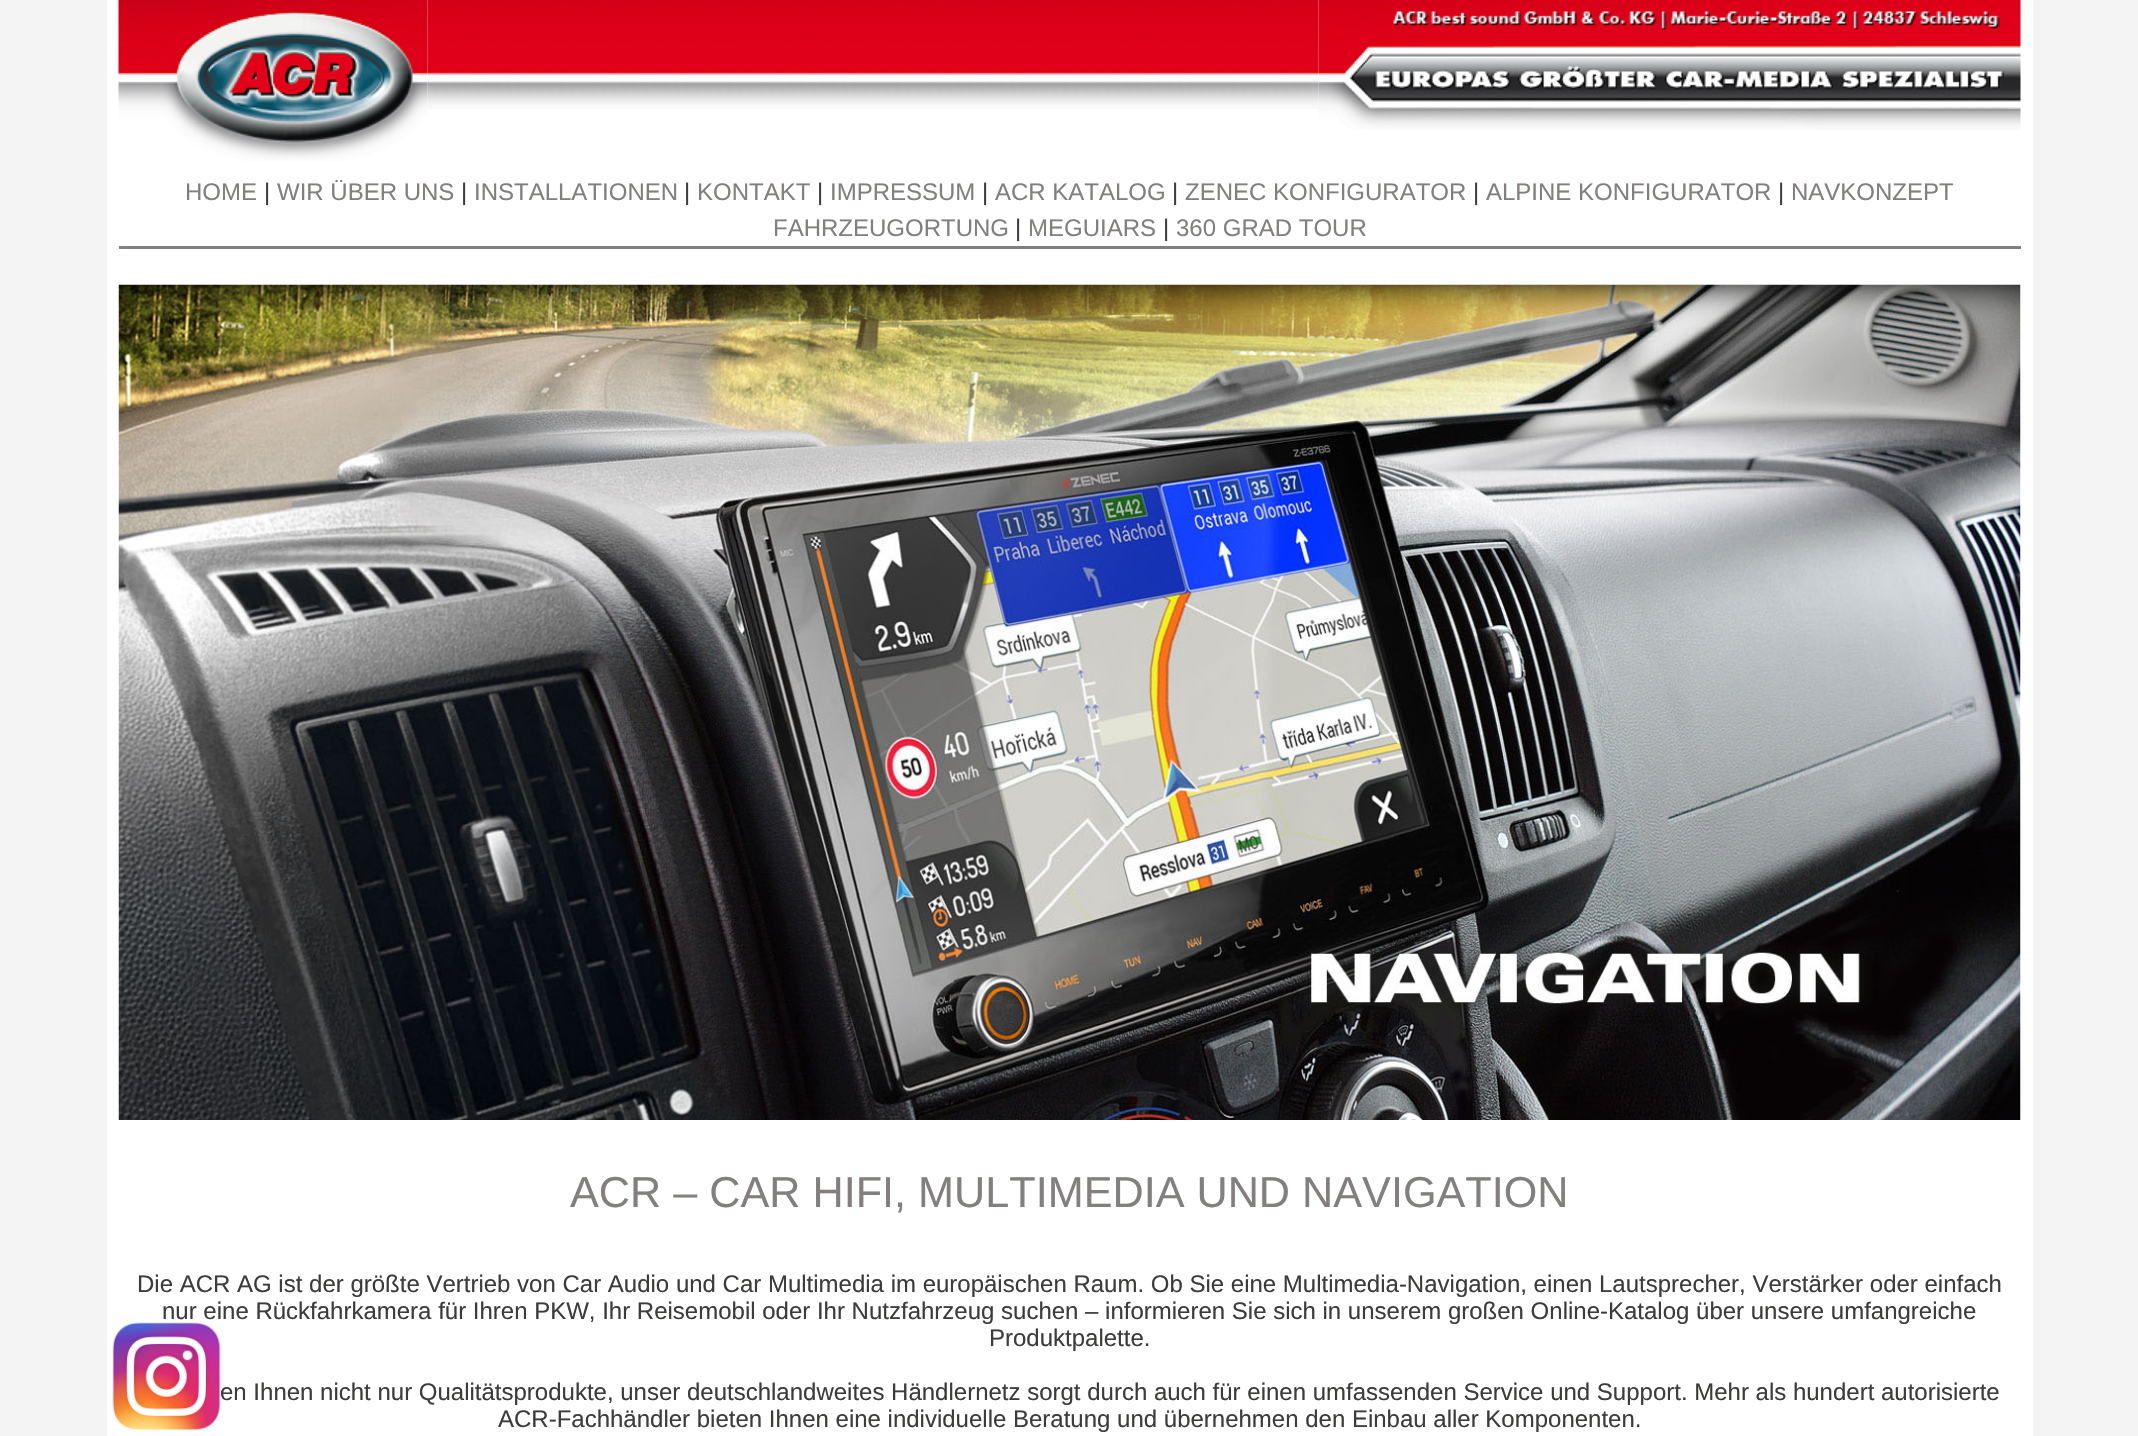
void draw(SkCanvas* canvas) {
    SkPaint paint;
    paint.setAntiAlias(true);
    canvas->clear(0xFFF4F4F4);
    paint.setColor(0xFFFFFFFF);
    canvas->drawRect(SkRect::MakeXYWH(107, 0, 1926, 1436), paint);
    canvas->drawImageRect(SkImages::DeferredFromEncodedData(SkData::MakeFromFileName("img2.png")), SkRect::MakeXYWH(427, 0, 892, 109), SkSamplingOptions());
    canvas->drawImageRect(SkImages::DeferredFromEncodedData(SkData::MakeFromFileName("img1.png")), SkRect::MakeXYWH(118, 0, 310, 161), SkSamplingOptions());
    canvas->drawImageRect(SkImages::DeferredFromEncodedData(SkData::MakeFromFileName("img3.png")), SkRect::MakeXYWH(1318, 0, 703, 130), SkSamplingOptions());
    paint.setColor(0xFF827F7E);
    canvas->drawRect(SkRect::MakeXYWH(119, 246, 1902, 3), paint);
    SkFont font1(fontMgr->matchFamilyStyle("Liberation Sans", SkFontStyle::Normal()), 24);
    font1.setSubpixel(true);
    canvas->drawString("HOME", 185, 200, font1, paint);
    paint.setColor(0xFF3D3C3B);
    canvas->drawString("|", 264, 200, font1, paint);
    paint.setColor(0xFF827F7E);
    canvas->drawString("WIR ÜBER UNS", 277, 200, font1, paint);
    paint.setColor(0xFF3D3C3B);
    canvas->drawString("|", 461, 200, font1, paint);
    paint.setColor(0xFF827F7E);
    canvas->drawString("INSTALLATIONEN", 474, 200, font1, paint);
    paint.setColor(0xFF3D3C3B);
    canvas->drawString("|", 684, 200, font1, paint);
    paint.setColor(0xFF827F7E);
    canvas->drawString("KONTAKT", 697, 200, font1, paint);
    paint.setColor(0xFF3D3C3B);
    canvas->drawString("|", 817, 200, font1, paint);
    paint.setColor(0xFF827F7E);
    canvas->drawString("IMPRESSUM", 830, 200, font1, paint);
    paint.setColor(0xFF3D3C3B);
    canvas->drawString("|", 982, 200, font1, paint);
    paint.setColor(0xFF827F7E);
    canvas->drawString("ACR KATALOG", 995, 200, font1, paint);
    paint.setColor(0xFF3D3C3B);
    canvas->drawString("|", 1172, 200, font1, paint);
    paint.setColor(0xFF827F7E);
    canvas->drawString("ZENEC KONFIGURATOR", 1185, 200, font1, paint);
    paint.setColor(0xFF3D3C3B);
    canvas->drawString("|", 1473, 200, font1, paint);
    paint.setColor(0xFF827F7E);
    canvas->drawString("ALPINE KONFIGURATOR", 1486, 200, font1, paint);
    paint.setColor(0xFF3D3C3B);
    canvas->drawString("|", 1778, 200, font1, paint);
    paint.setColor(0xFF827F7E);
    canvas->drawString("NAVKONZEPT", 1791, 200, font1, paint);
    canvas->drawString("FAHRZEUGORTUNG", 773, 236, font1, paint);
    paint.setColor(0xFF3D3C3B);
    canvas->drawString("|", 1015, 236, font1, paint);
    paint.setColor(0xFF827F7E);
    canvas->drawString("MEGUIARS", 1028, 236, font1, paint);
    paint.setColor(0xFF3D3C3B);
    canvas->drawString("|", 1163, 236, font1, paint);
    paint.setColor(0xFF827F7E);
    canvas->drawString("360 GRAD TOUR", 1176, 236, font1, paint);
    canvas->drawImageRect(SkImages::DeferredFromEncodedData(SkData::MakeFromFileName("img4.png")), SkRect::MakeXYWH(118, 284, 1903, 836), SkSamplingOptions());
    SkFont font2(fontMgr->matchFamilyStyle("Liberation Sans", SkFontStyle::Normal()), 43.2f);
    font2.setSubpixel(true);
    canvas->drawString("ACR – CAR HIFI, MULTIMEDIA UND NAVIGATION", 570, 1207, font2, paint);
    paint.setColor(0xFF3D3C3B);
    canvas->drawString("Die ACR AG ist der größte Vertrieb von Car Audio und Car Multimedia im europäischen Raum. Ob Sie eine Multimedia-Navigation, einen Lautsprecher, Verstärker oder einfach", 137, 1292, font1, paint);
    canvas->drawString("nur eine Rückfahrkamera für Ihren PKW, Ihr Reisemobil oder Ihr Nutzfahrzeug suchen – informieren Sie sich in unserem großen Online-Katalog über unsere umfangreiche", 162, 1319, font1, paint);
    canvas->drawString("Produktpalette.", 989, 1346, font1, paint);
    canvas->drawString("en Ihnen nicht nur Qualitätsprodukte, unser deutschlandweites Händlernetz sorgt durch auch für einen umfassenden Service und Support. Mehr als hundert autorisierte", 220, 1400, font1, paint);
    canvas->drawString("ACR-Fachhändler bieten Ihnen eine individuelle Beratung und übernehmen den Einbau aller Komponenten.", 498, 1427, font1, paint);
    canvas->drawImageRect(SkImages::DeferredFromEncodedData(SkData::MakeFromFileName("img5.png")), SkRect::MakeXYWH(112, 1322, 109, 109), SkSamplingOptions());
}
